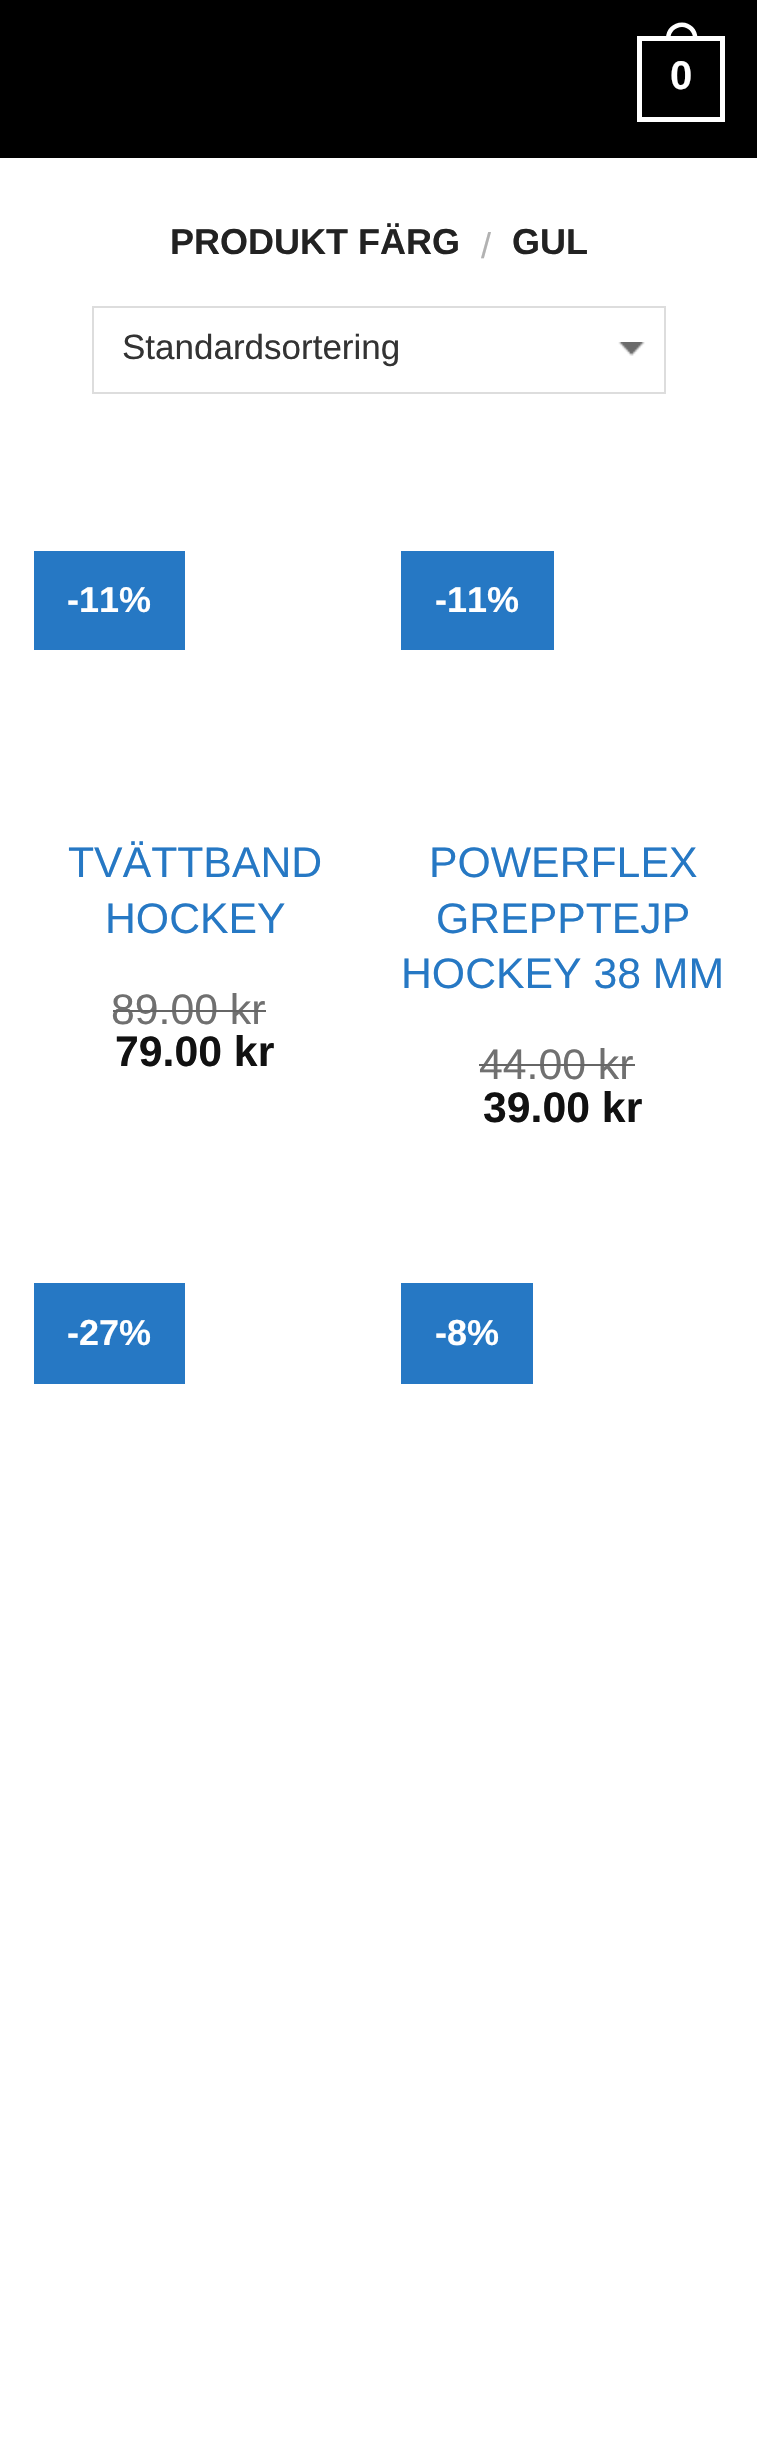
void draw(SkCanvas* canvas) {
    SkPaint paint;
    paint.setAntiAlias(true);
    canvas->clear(0xFFFFFFFF);
    paint.setColor(0xFF000000);
    canvas->drawRect(SkRect::MakeXYWH(0, 0, 757, 158), paint);
    paint.setStyle(SkPaint::kStroke_Style);
    paint.setStrokeWidth(5);
    paint.setColor(0xFFFFFFFF);
    canvas->drawRect(SkRect::MakeXYWH(639.5f, 38.5f, 83, 81), paint);
    paint.setStyle(SkPaint::kFill_Style);
    canvas->drawPath(SkPathBuilder(SkPathFillType::kEvenOdd).moveTo(682, 22.5f).cubicTo(690.5f, 22.5f, 697.5f, 29.5f, 697.5f, 38).lineTo(697.5f, 40.5f).lineTo(666, 40.5f).lineTo(666, 38).cubicTo(666, 29.5f, 673, 22.5f, 682, 22.5f).close().moveTo(682, 27).cubicTo(688, 27, 693, 32, 693, 38).lineTo(693, 40.5f).lineTo(670.5f, 40.5f).lineTo(670.5f, 38).cubicTo(670.5f, 32, 675.5f, 27, 682, 27).close().detach(), paint);
    SkFont font1(fontMgr->matchFamilyStyle("Liberation Sans", SkFontStyle::Bold()), 40);
    font1.setSubpixel(true);
    canvas->drawString("0", 670, 89, font1, paint);
    SkFont font2(fontMgr->matchFamilyStyle("Liberation Sans", SkFontStyle::Bold()), 36);
    font2.setSubpixel(true);
    paint.setColor(0xFF222222);
    canvas->drawString("PRODUKT FÄRG", 170, 254, font2, paint);
    SkFont font3(fontMgr->matchFamilyStyle("Liberation Sans", SkFontStyle::Normal()), 36);
    font3.setSubpixel(true);
    paint.setColor(0xFFB2B2B2);
    canvas->drawString("/", 481, 258, font3, paint);
    paint.setColor(0xFF222222);
    canvas->drawString("GUL", 512, 254, font2, paint);
    canvas->drawImageRect(SkImages::DeferredFromEncodedData(SkData::MakeFromFileName("img1.png")), SkRect::MakeXYWH(618, 342, 27, 14), SkSamplingOptions());
    paint.setStyle(SkPaint::kStroke_Style);
    paint.setStrokeWidth(2);
    paint.setColor(0xFFDDDDDD);
    canvas->drawRect(SkRect::MakeXYWH(93, 307, 572, 86), paint);
    SkFont font4(fontMgr->matchFamilyStyle("Liberation Sans", SkFontStyle::Normal()), 35);
    font4.setSubpixel(true);
    paint.setStyle(SkPaint::kFill_Style);
    paint.setColor(0xFF333333);
    canvas->drawString("Standardsortering", 122, 359, font4, paint);
    paint.setColor(0xFF2678C4);
    canvas->drawRect(SkRect::MakeXYWH(34, 551, 151, 99), paint);
    paint.setColor(0xFFFFFFFF);
    canvas->drawString("-11%", 67, 612, font2, paint);
    SkFont font5(fontMgr->matchFamilyStyle("Liberation Sans", SkFontStyle::Normal()), 42.75f);
    font5.setSubpixel(true);
    paint.setColor(0xFF2678C4);
    canvas->drawString("TVÄTTBAND", 68, 877, font5, paint);
    canvas->drawString("HOCKEY", 105, 933, font5, paint);
    paint.setColor(0xFF707070);
    canvas->drawString("89.00 kr", 111, 1024, font5, paint);
    paint.setColor(0xFF666666);
    canvas->drawRect(SkRect::MakeXYWH(113, 1010, 153, 2), paint);
    SkFont font6(fontMgr->matchFamilyStyle("Liberation Sans", SkFontStyle::Bold()), 42.75f);
    font6.setSubpixel(true);
    paint.setColor(0xFF111111);
    canvas->drawString("79.00 kr", 115, 1066, font6, paint);
    paint.setColor(0xFF2678C4);
    canvas->drawRect(SkRect::MakeXYWH(401, 551, 153, 99), paint);
    paint.setColor(0xFFFFFFFF);
    canvas->drawString("-11%", 435, 612, font2, paint);
    paint.setColor(0xFF2678C4);
    canvas->drawString("POWERFLEX", 429, 877, font5, paint);
    canvas->drawString("GREPPTEJP", 436, 933, font5, paint);
    canvas->drawString("HOCKEY 38 MM", 401, 988, font5, paint);
    paint.setColor(0xFF707070);
    canvas->drawString("44.00 kr", 479, 1079, font5, paint);
    paint.setColor(0xFF666666);
    canvas->drawRect(SkRect::MakeXYWH(479, 1064, 156, 2), paint);
    paint.setColor(0xFF111111);
    canvas->drawString("39.00 kr", 483, 1122, font6, paint);
    paint.setColor(0xFF2678C4);
    canvas->drawRect(SkRect::MakeXYWH(34, 1283, 151, 101), paint);
    paint.setColor(0xFFFFFFFF);
    canvas->drawString("-27%", 67, 1345, font2, paint);
    paint.setColor(0xFF2678C4);
    canvas->drawRect(SkRect::MakeXYWH(401, 1283, 132, 101), paint);
    paint.setColor(0xFFFFFFFF);
    canvas->drawString("-8%", 435, 1345, font2, paint);
}
